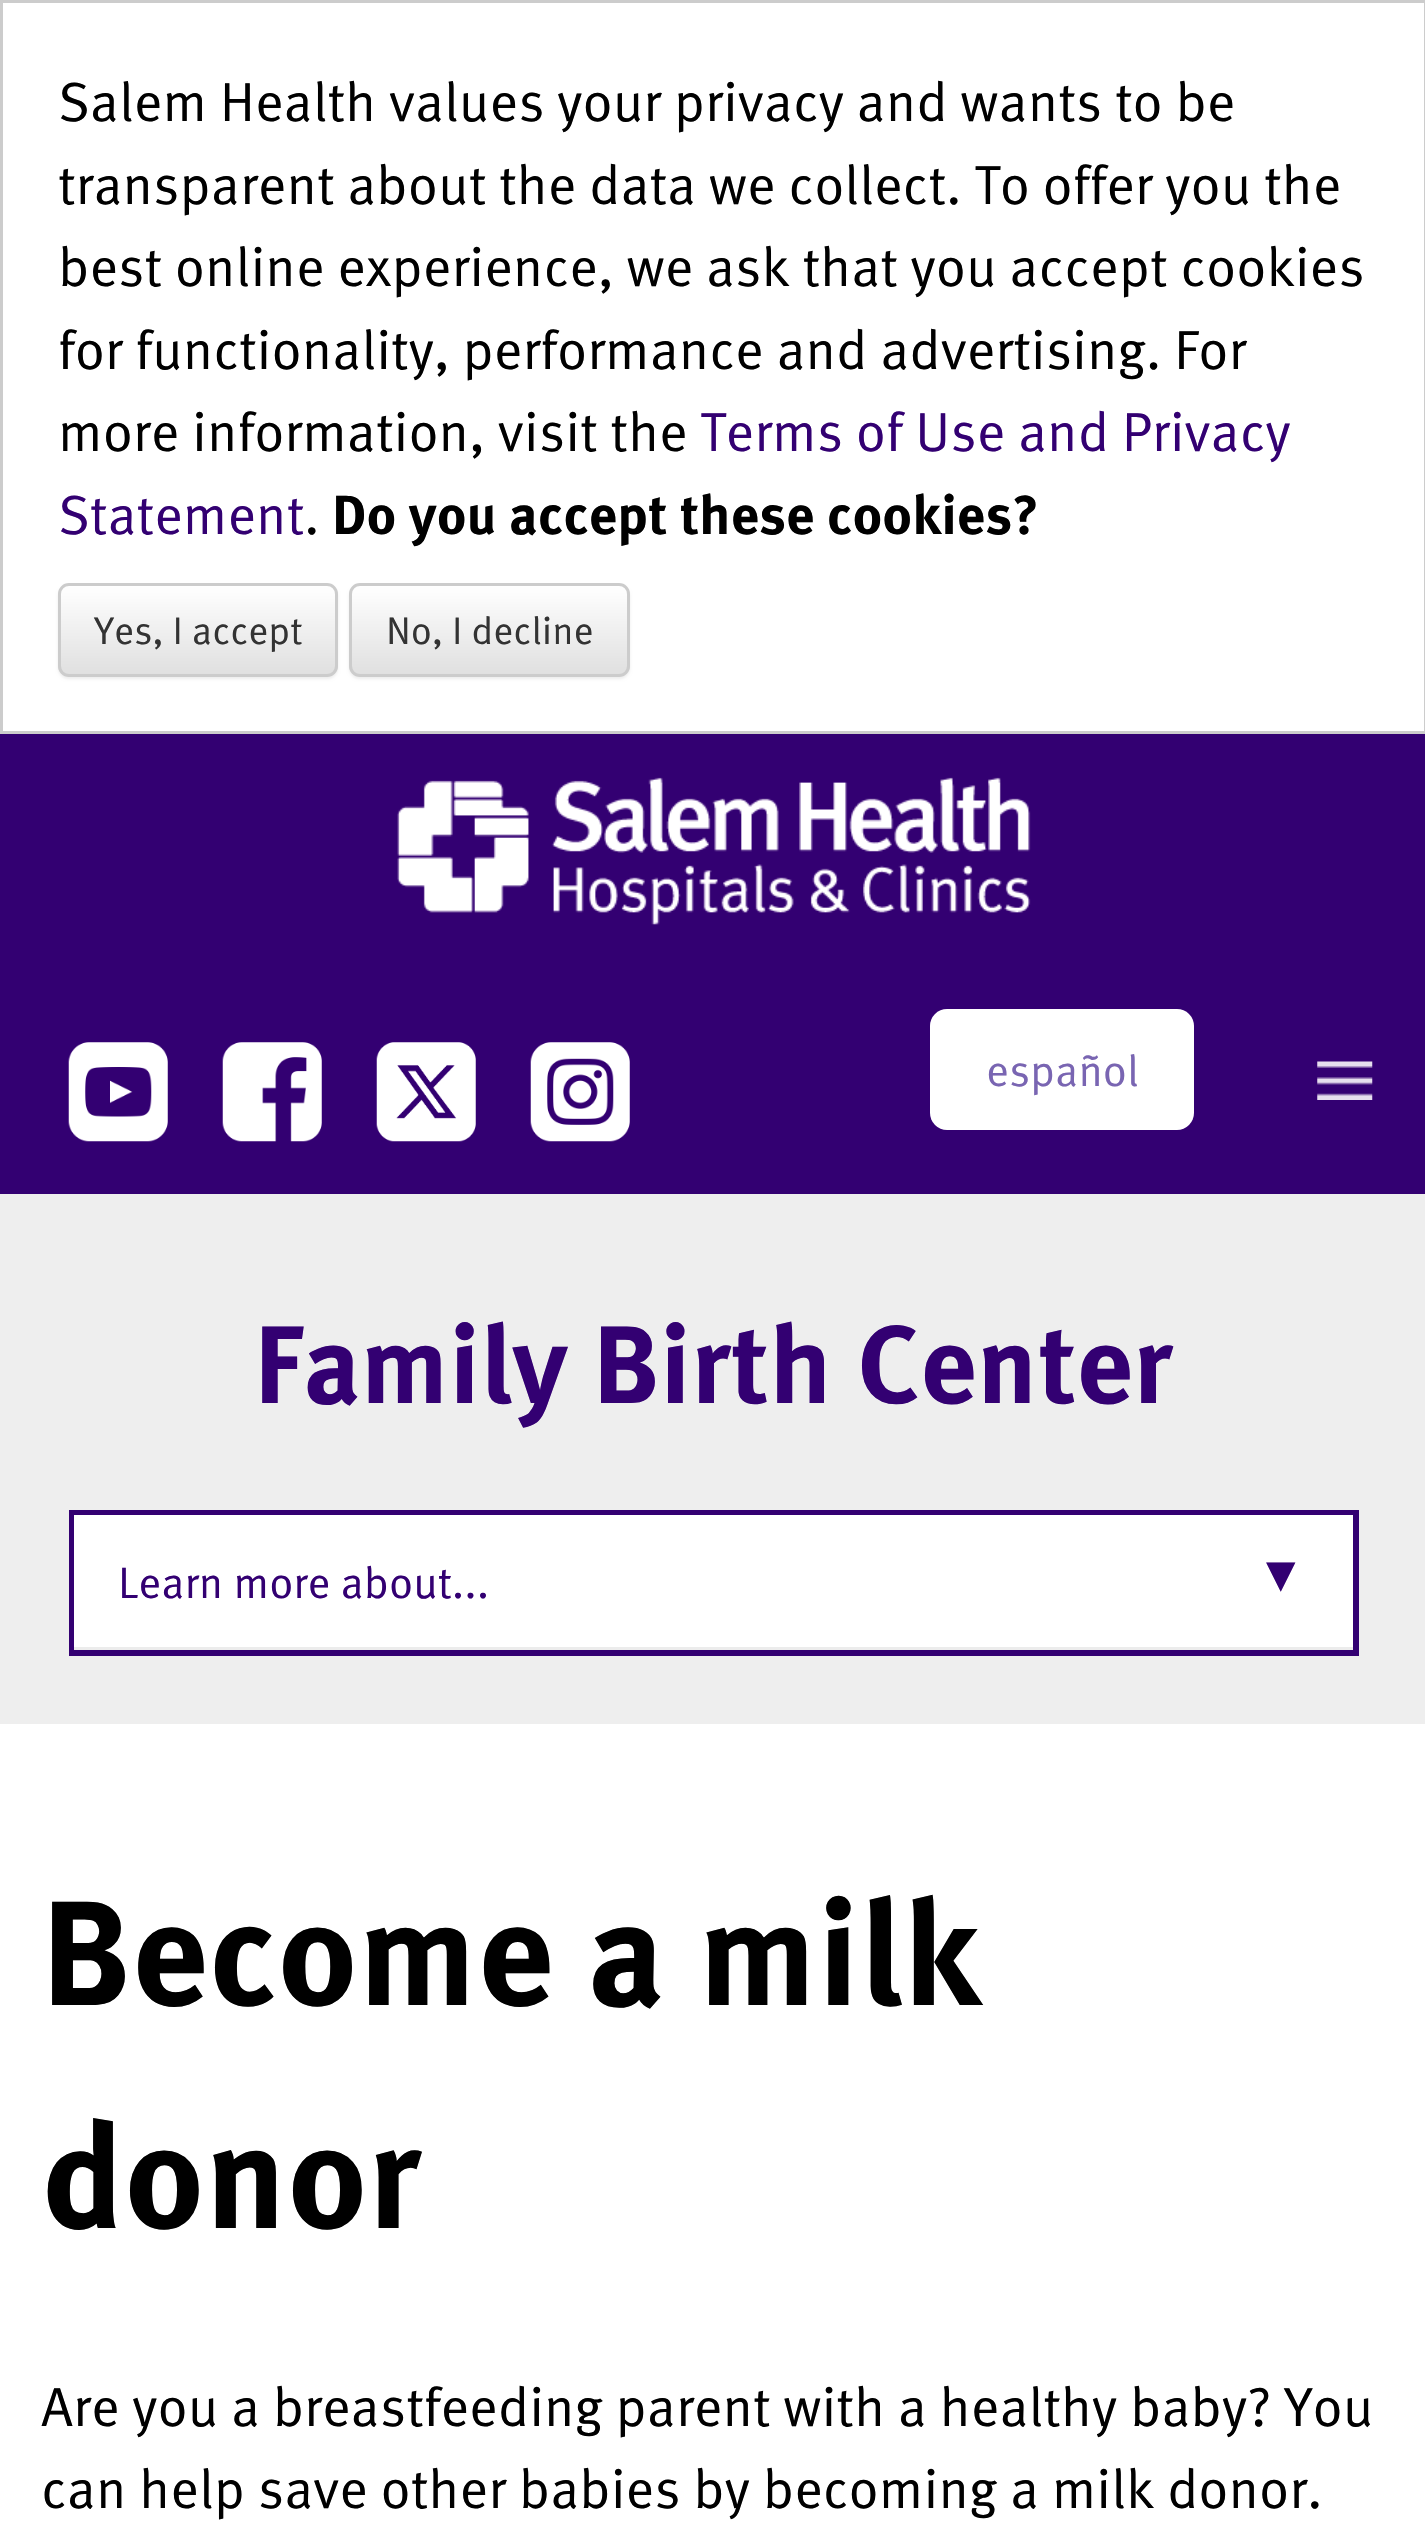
void draw(SkCanvas* canvas) {
    SkPaint paint;
    paint.setAntiAlias(true);
    canvas->clear(0xFFFFFFFF);
    paint.setStyle(SkPaint::kStroke_Style);
    paint.setStrokeWidth(3);
    paint.setColor(0xFFCCCCCC);
    canvas->drawRect(SkRect::MakeXYWH(1.5f, 1.5f, 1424, 731), paint);
    SkFont font1(fontMgr->matchFamilyStyle("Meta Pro", SkFontStyle::Normal()), 55);
    font1.setSubpixel(true);
    paint.setStyle(SkPaint::kFill_Style);
    paint.setColor(0xFF000000);
    canvas->drawString("Salem Health values your privacy and wants to be", 58, 121, font1, paint);
    canvas->drawString("transparent about the data we collect. To offer you the", 58, 204, font1, paint);
    canvas->drawString("best online experience, we ask that you accept cookies", 58, 286, font1, paint);
    canvas->drawString("for functionality, performance and advertising. For", 58, 369, font1, paint);
    canvas->drawString("more information, visit the", 58, 451, font1, paint);
    paint.setColor(0xFF330072);
    canvas->drawString("Terms of Use and Privacy", 700, 451, font1, paint);
    canvas->drawString("Statement", 58, 534, font1, paint);
    paint.setColor(0xFF000000);
    canvas->drawString(".", 304, 534, font1, paint);
    SkFont font2(fontMgr->matchFamilyStyle("Meta Pro", SkFontStyle::Bold()), 55);
    font2.setSubpixel(true);
    canvas->drawString("Do you accept these cookies?", 332, 534, font2, paint);
    paint.setColor(0x12000000);
    paint.setMaskFilter(SkMaskFilter::MakeBlur(kNormal_SkBlurStyle, 1.5f));
    canvas->drawRoundRect(SkRect::MakeXYWH(58, 586, 280, 93), 11, 11, paint);
    paint.setMaskFilter(nullptr);
    canvas->save();
    canvas->clipPath(SkPathBuilder().moveTo(69, 583).lineTo(327, 583).cubicTo(333, 583, 338, 588, 338, 594).lineTo(338, 666).cubicTo(338, 672, 333, 677, 327, 677).lineTo(69, 677).cubicTo(63, 677, 58, 672, 58, 666).lineTo(58, 594).cubicTo(58, 588, 63, 583, 69, 583).close().detach(), true);
    {
        const SkColor colors[] = {0xFFFFFFFF, 0xFFE0E0E0};
        const float stops[] = {0, 1};
        const SkPoint ends[] = {{198, 586}, {198, 674}};
        paint.setShader(SkGradientShader::MakeLinear(ends, colors, stops, 2, SkTileMode::kClamp));
        paint.setAlpha(255);
    }
    canvas->drawRect(SkRect::MakeXYWH(58, 586, 280, 88), paint);
    canvas->restore();
    paint.setStyle(SkPaint::kStroke_Style);
    paint.setShader(nullptr);
    paint.setColor(0xFFCCCCCC);
    canvas->drawRoundRect(SkRect::MakeXYWH(59.5f, 584.5f, 277, 91), 9.5f, 9.5f, paint);
    SkFont font3(fontMgr->matchFamilyStyle("Meta Pro", SkFontStyle::Normal()), 38.5f);
    font3.setSubpixel(true);
    paint.setStyle(SkPaint::kFill_Style);
    paint.setColor(0xFF333333);
    canvas->drawString("Yes, I accept", 94, 644, font3, paint);
    paint.setColor(0x12000000);
    paint.setMaskFilter(SkMaskFilter::MakeBlur(kNormal_SkBlurStyle, 1.5f));
    canvas->drawRoundRect(SkRect::MakeXYWH(349, 586, 281, 93), 11, 11, paint);
    paint.setMaskFilter(nullptr);
    canvas->save();
    canvas->clipPath(SkPathBuilder().moveTo(360, 583).lineTo(619, 583).cubicTo(625, 583, 630, 588, 630, 594).lineTo(630, 666).cubicTo(630, 672, 625, 677, 619, 677).lineTo(360, 677).cubicTo(354, 677, 349, 672, 349, 666).lineTo(349, 594).cubicTo(349, 588, 354, 583, 360, 583).close().detach(), true);
    {
        const SkColor colors[] = {0xFFFFFFFF, 0xFFE0E0E0};
        const float stops[] = {0, 1};
        const SkPoint ends[] = {{490, 586}, {490, 674}};
        paint.setShader(SkGradientShader::MakeLinear(ends, colors, stops, 2, SkTileMode::kClamp));
        paint.setAlpha(255);
    }
    canvas->drawRect(SkRect::MakeXYWH(349, 586, 281, 88), paint);
    canvas->restore();
    paint.setStyle(SkPaint::kStroke_Style);
    paint.setShader(nullptr);
    paint.setColor(0xFFCCCCCC);
    canvas->drawRoundRect(SkRect::MakeXYWH(350.5f, 584.5f, 278, 91), 9.5f, 9.5f, paint);
    paint.setStyle(SkPaint::kFill_Style);
    paint.setColor(0xFF333333);
    canvas->drawString("No, I decline", 386, 644, font3, paint);
    paint.setColor(0xFF330072);
    canvas->drawRect(SkRect::MakeXYWH(0, 734, 1425, 460), paint);
    canvas->drawImageRect(SkImages::DeferredFromEncodedData(SkData::MakeFromFileName("img1.png")), SkRect::MakeXYWH(397, 777, 634, 148), SkSamplingOptions());
    canvas->drawImageRect(SkImages::DeferredFromEncodedData(SkData::MakeFromFileName("img2.png")), SkRect::MakeXYWH(68, 1042, 100, 100), SkSamplingOptions());
    canvas->drawImageRect(SkImages::DeferredFromEncodedData(SkData::MakeFromFileName("img3.png")), SkRect::MakeXYWH(222, 1042, 100, 100), SkSamplingOptions());
    canvas->drawImageRect(SkImages::DeferredFromEncodedData(SkData::MakeFromFileName("img4.png")), SkRect::MakeXYWH(376, 1042, 100, 100), SkSamplingOptions());
    canvas->drawImageRect(SkImages::DeferredFromEncodedData(SkData::MakeFromFileName("img5.png")), SkRect::MakeXYWH(530, 1042, 100, 100), SkSamplingOptions());
    canvas->drawImageRect(SkImages::DeferredFromEncodedData(SkData::MakeFromFileName("img6.png")), SkRect::MakeXYWH(1317, 1061, 56, 39), SkSamplingOptions());
    paint.setColor(0xFFFFFFFF);
    canvas->drawRoundRect(SkRect::MakeXYWH(930, 1009, 264, 121), 17, 17, paint);
    SkFont font4(fontMgr->matchFamilyStyle("Meta Pro", SkFontStyle::Normal()), 44);
    font4.setSubpixel(true);
    paint.setColor(0xFF7965B2);
    canvas->drawString("español", 986, 1086, font4, paint);
    paint.setColor(0xFFEEEEEE);
    canvas->drawRect(SkRect::MakeXYWH(0, 1194, 1425, 530), paint);
    SkFont font5(fontMgr->matchFamilyStyle("Meta Pro", SkFontStyle::Bold()), 110);
    font5.setSubpixel(true);
    paint.setColor(0xFF330072);
    canvas->drawString("Family Birth Center", 254, 1403, font5, paint);
    paint.setStyle(SkPaint::kStroke_Style);
    paint.setStrokeWidth(28);
    canvas->drawRect(SkRect::MakeXYWH(83, 1524, 1262, 118), paint);
    paint.setStyle(SkPaint::kFill_Style);
    paint.setColor(0xFFFFFFFF);
    canvas->drawRect(SkRect::MakeXYWH(74, 1515, 1279, 132), paint);
    paint.setColor(0xFFECECEC);
    canvas->drawRect(SkRect::MakeXYWH(74, 1647, 1279, 3), paint);
    paint.setColor(0xFF330072);
    canvas->drawString("Learn more about...", 118, 1598, font4, paint);
    SkFont font6(fontMgr->matchFamilyStyle("Liberation Sans", SkFontStyle::Italic()), 50);
    font6.setSubpixel(true);
    canvas->drawString("▼", 1256, 1591, font6, paint);
    SkFont font7(fontMgr->matchFamilyStyle("Meta Pro", SkFontStyle::Bold()), 148.5f);
    font7.setSubpixel(true);
    paint.setColor(0xFF000000);
    canvas->drawString("Become a milk", 41, 2005, font7, paint);
    canvas->drawString("donor", 41, 2228, font7, paint);
    canvas->drawString("Are you a breastfeeding parent with a healthy baby? You", 41, 2426, font1, paint);
    canvas->drawString("can help save other babies by becoming a milk donor.", 41, 2508, font1, paint);
}
